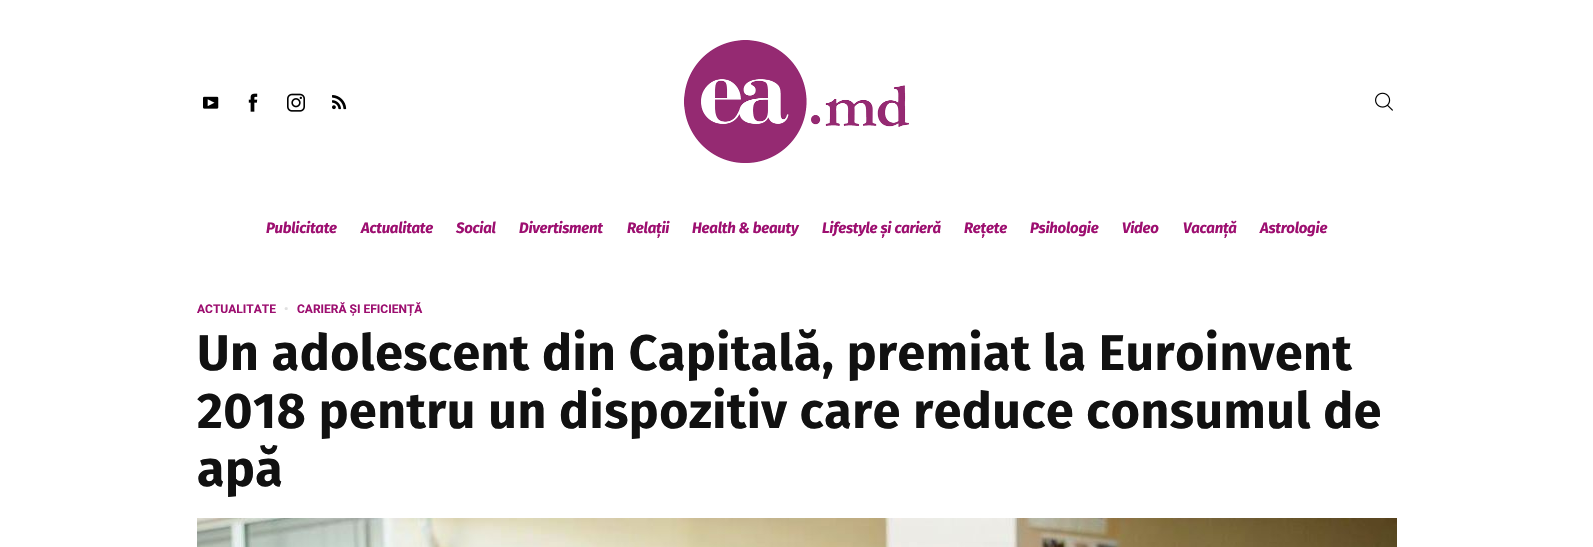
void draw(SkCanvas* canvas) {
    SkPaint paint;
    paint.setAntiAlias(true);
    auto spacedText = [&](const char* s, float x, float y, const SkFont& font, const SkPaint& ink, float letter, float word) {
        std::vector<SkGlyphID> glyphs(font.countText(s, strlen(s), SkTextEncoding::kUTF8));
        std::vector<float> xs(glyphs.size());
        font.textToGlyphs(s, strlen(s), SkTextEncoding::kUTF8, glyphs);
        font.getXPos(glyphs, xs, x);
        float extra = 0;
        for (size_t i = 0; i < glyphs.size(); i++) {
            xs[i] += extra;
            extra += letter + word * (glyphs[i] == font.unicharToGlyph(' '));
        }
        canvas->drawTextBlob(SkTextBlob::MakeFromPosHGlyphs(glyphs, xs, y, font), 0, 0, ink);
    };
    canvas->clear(0xFFFFFFFF);
    canvas->drawImageRect(SkImages::DeferredFromEncodedData(SkData::MakeFromFileName("img1.png")), SkRect::MakeXYWH(203, 96, 16, 13), SkSamplingOptions());
    canvas->drawImageRect(SkImages::DeferredFromEncodedData(SkData::MakeFromFileName("img2.png")), SkRect::MakeXYWH(248, 93, 10, 19), SkSamplingOptions());
    canvas->drawImageRect(SkImages::DeferredFromEncodedData(SkData::MakeFromFileName("img3.png")), SkRect::MakeXYWH(287, 93, 18, 19), SkSamplingOptions());
    canvas->drawImageRect(SkImages::DeferredFromEncodedData(SkData::MakeFromFileName("img4.png")), SkRect::MakeXYWH(332, 95, 15, 15), SkSamplingOptions());
    canvas->drawImageRect(SkImages::DeferredFromEncodedData(SkData::MakeFromFileName("img5.png")), SkRect::MakeXYWH(684, 40, 225, 123), SkSamplingOptions());
    canvas->drawImageRect(SkImages::DeferredFromEncodedData(SkData::MakeFromFileName("img6.png")), SkRect::MakeXYWH(1375, 92, 18, 19), SkSamplingOptions());
    SkFont font1(fontMgr->matchFamilyStyle("Fira Sans", SkFontStyle::BoldItalic()), 15);
    font1.setSubpixel(true);
    paint.setColor(0xFF9D0F70);
    spacedText("Publicitate", 266, 233, font1, paint, -0.25f, 0);
    spacedText("Actualitate", 361, 233, font1, paint, -0.25f, 0);
    spacedText("Social", 456, 233, font1, paint, -0.25f, 0);
    spacedText("Divertisment", 519, 233, font1, paint, -0.25f, 0);
    spacedText("Relații", 627, 233, font1, paint, -0.25f, 0);
    spacedText("Health & beauty", 692, 233, font1, paint, -0.25f, 0);
    spacedText("Lifestyle și carieră", 822, 233, font1, paint, -0.25f, 0);
    spacedText("Rețete", 964, 233, font1, paint, -0.25f, 0);
    spacedText("Psihologie", 1030, 233, font1, paint, -0.25f, 0);
    spacedText("Video", 1122, 233, font1, paint, -0.25f, 0);
    spacedText("Vacanță", 1183, 233, font1, paint, -0.25f, 0);
    spacedText("Astrologie", 1260, 233, font1, paint, -0.25f, 0);
    SkFont font2(fontMgr->matchFamilyStyle("Roboto", SkFontStyle::Bold()), 12);
    font2.setSubpixel(true);
    canvas->drawString("ACTUALITATE", 197, 313, font2, paint);
    paint.setColor(0xFFE0E0E0);
    canvas->drawString("•", 284, 313, font2, paint);
    paint.setColor(0xFF9D0F70);
    canvas->drawString("CARIERĂ ȘI EFICIENȚĂ", 297, 313, font2, paint);
    SkFont font3(fontMgr->matchFamilyStyle("Fira Sans", SkFontStyle::Bold()), 50);
    font3.setSubpixel(true);
    paint.setColor(0xFF111111);
    spacedText("Un adolescent din Capitală, premiat la Euroinvent", 197, 370, font3, paint, 0.5f, 0);
    spacedText("2018 pentru un dispozitiv care reduce consumul de", 197, 428, font3, paint, 0.5f, 0);
    spacedText("apă", 197, 486, font3, paint, 0.5f, 0);
    canvas->drawImageRect(SkImages::DeferredFromEncodedData(SkData::MakeFromFileName("img7.png")), SkRect::MakeXYWH(197, 518, 1200, 29), SkSamplingOptions());
}
